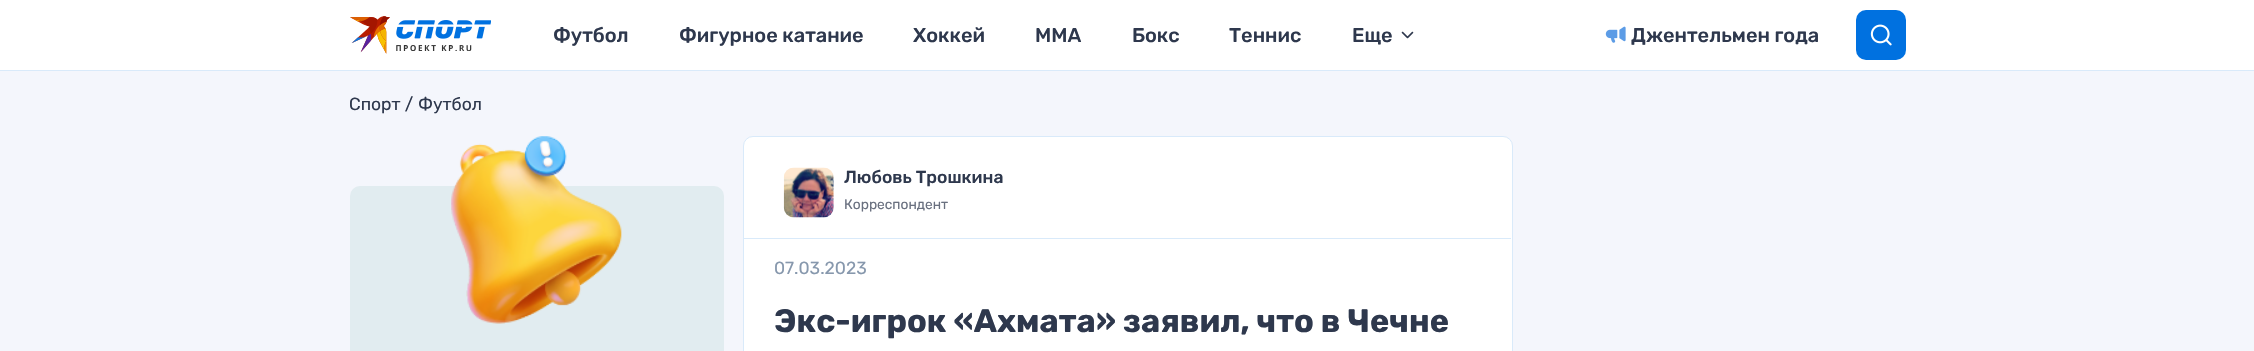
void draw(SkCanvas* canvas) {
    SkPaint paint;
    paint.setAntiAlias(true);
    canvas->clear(0xFFF4F6FC);
    paint.setColor(0xFFFFFFFF);
    canvas->drawRect(SkRect::MakeXYWH(0, 0, 2254, 70), paint);
    paint.setColor(0xFFD9EAFA);
    canvas->drawRect(SkRect::MakeXYWH(0, 70, 2254, 1), paint);
    canvas->drawImageRect(SkImages::DeferredFromEncodedData(SkData::MakeFromFileName("img1.png")), SkRect::MakeXYWH(350, 16, 40, 38), SkSamplingOptions());
    canvas->drawImageRect(SkImages::DeferredFromEncodedData(SkData::MakeFromFileName("img2.png")), SkRect::MakeXYWH(396, 20, 95, 31), SkSamplingOptions());
    SkFont font1(fontMgr->matchFamilyStyle("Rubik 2", SkFontStyle(300, SkFontStyle::kNormal_Width, SkFontStyle::kUpright_Slant)), 20);
    font1.setSubpixel(true);
    paint.setColor(0xFF2E384D);
    canvas->drawString("Футбол", 553, 42, font1, paint);
    canvas->drawString("Фигурное катание", 679, 42, font1, paint);
    canvas->drawString("Хоккей", 913, 42, font1, paint);
    canvas->drawString("MMA", 1035, 42, font1, paint);
    canvas->drawString("Бокс", 1132, 42, font1, paint);
    canvas->drawString("Теннис", 1229, 42, font1, paint);
    canvas->drawString("Еще", 1352, 42, font1, paint);
    canvas->drawImageRect(SkImages::DeferredFromEncodedData(SkData::MakeFromFileName("img3.png")), SkRect::MakeXYWH(1401, 31, 13, 8), SkSamplingOptions());
    canvas->drawImageRect(SkImages::DeferredFromEncodedData(SkData::MakeFromFileName("img4.png")), SkRect::MakeXYWH(1605, 26, 21, 17), SkSamplingOptions());
    canvas->drawString("Джентельмен года", 1631, 42, font1, paint);
    paint.setColor(0xFF0071E0);
    canvas->drawRoundRect(SkRect::MakeXYWH(1856, 10, 50, 50), 10, 10, paint);
    canvas->drawImageRect(SkImages::DeferredFromEncodedData(SkData::MakeFromFileName("img5.png")), SkRect::MakeXYWH(1870, 24, 22, 22), SkSamplingOptions());
    SkFont font2(fontMgr->matchFamilyStyle("Rubik", SkFontStyle(300, SkFontStyle::kNormal_Width, SkFontStyle::kUpright_Slant)), 17.5f);
    font2.setSubpixel(true);
    paint.setColor(0xFF2E384D);
    canvas->drawString("Спорт /", 349, 110, font2, paint);
    canvas->drawString("Футбол", 418, 110, font2, paint);
    paint.setColor(0xFFE1ECF0);
    canvas->drawRoundRect(SkRect::MakeXYWH(350, 186, 374, 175), 10, 10, paint);
    canvas->drawImageRect(SkImages::DeferredFromEncodedData(SkData::MakeFromFileName("img6.png")), SkRect::MakeXYWH(451, 136, 171, 188), SkSamplingOptions());
    paint.setColor(0xFFFFFFFF);
    canvas->drawRoundRect(SkRect::MakeXYWH(743.5f, 136.5f, 769, 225), 9.5f, 9.5f, paint);
    paint.setStyle(SkPaint::kStroke_Style);
    paint.setStrokeWidth(1);
    paint.setColor(0xFFD9EAFA);
    canvas->drawRoundRect(SkRect::MakeXYWH(743.5f, 136.5f, 769, 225), 9.5f, 9.5f, paint);
    paint.setStyle(SkPaint::kFill_Style);
    canvas->drawRect(SkRect::MakeXYWH(744, 238, 767, 1), paint);
    canvas->drawImageRect(SkImages::DeferredFromEncodedData(SkData::MakeFromFileName("img7.png")), SkRect::MakeXYWH(783, 167, 51, 51), SkSamplingOptions());
    SkFont font3(fontMgr->matchFamilyStyle("Rubik 2", SkFontStyle(300, SkFontStyle::kNormal_Width, SkFontStyle::kUpright_Slant)), 17.5f);
    font3.setSubpixel(true);
    paint.setColor(0xFF2E384D);
    canvas->drawString("Любовь Трошкина", 844, 183, font3, paint);
    SkFont font4(fontMgr->matchFamilyStyle("Rubik", SkFontStyle(300, SkFontStyle::kNormal_Width, SkFontStyle::kUpright_Slant)), 13.75f);
    font4.setSubpixel(true);
    paint.setColor(0xFF69707F);
    canvas->drawString("Корреспондент", 844, 209, font4, paint);
    paint.setColor(0xFF8798AD);
    canvas->drawString("07.03.2023", 774, 274, font2, paint);
    SkFont font5(fontMgr->matchFamilyStyle("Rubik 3", SkFontStyle(300, SkFontStyle::kNormal_Width, SkFontStyle::kUpright_Slant)), 32.5f);
    font5.setSubpixel(true);
    paint.setColor(0xFF2E384D);
    canvas->drawString("Экс-игрок «Ахмата» заявил, что в Чечне", 774, 332, font5, paint);
}
